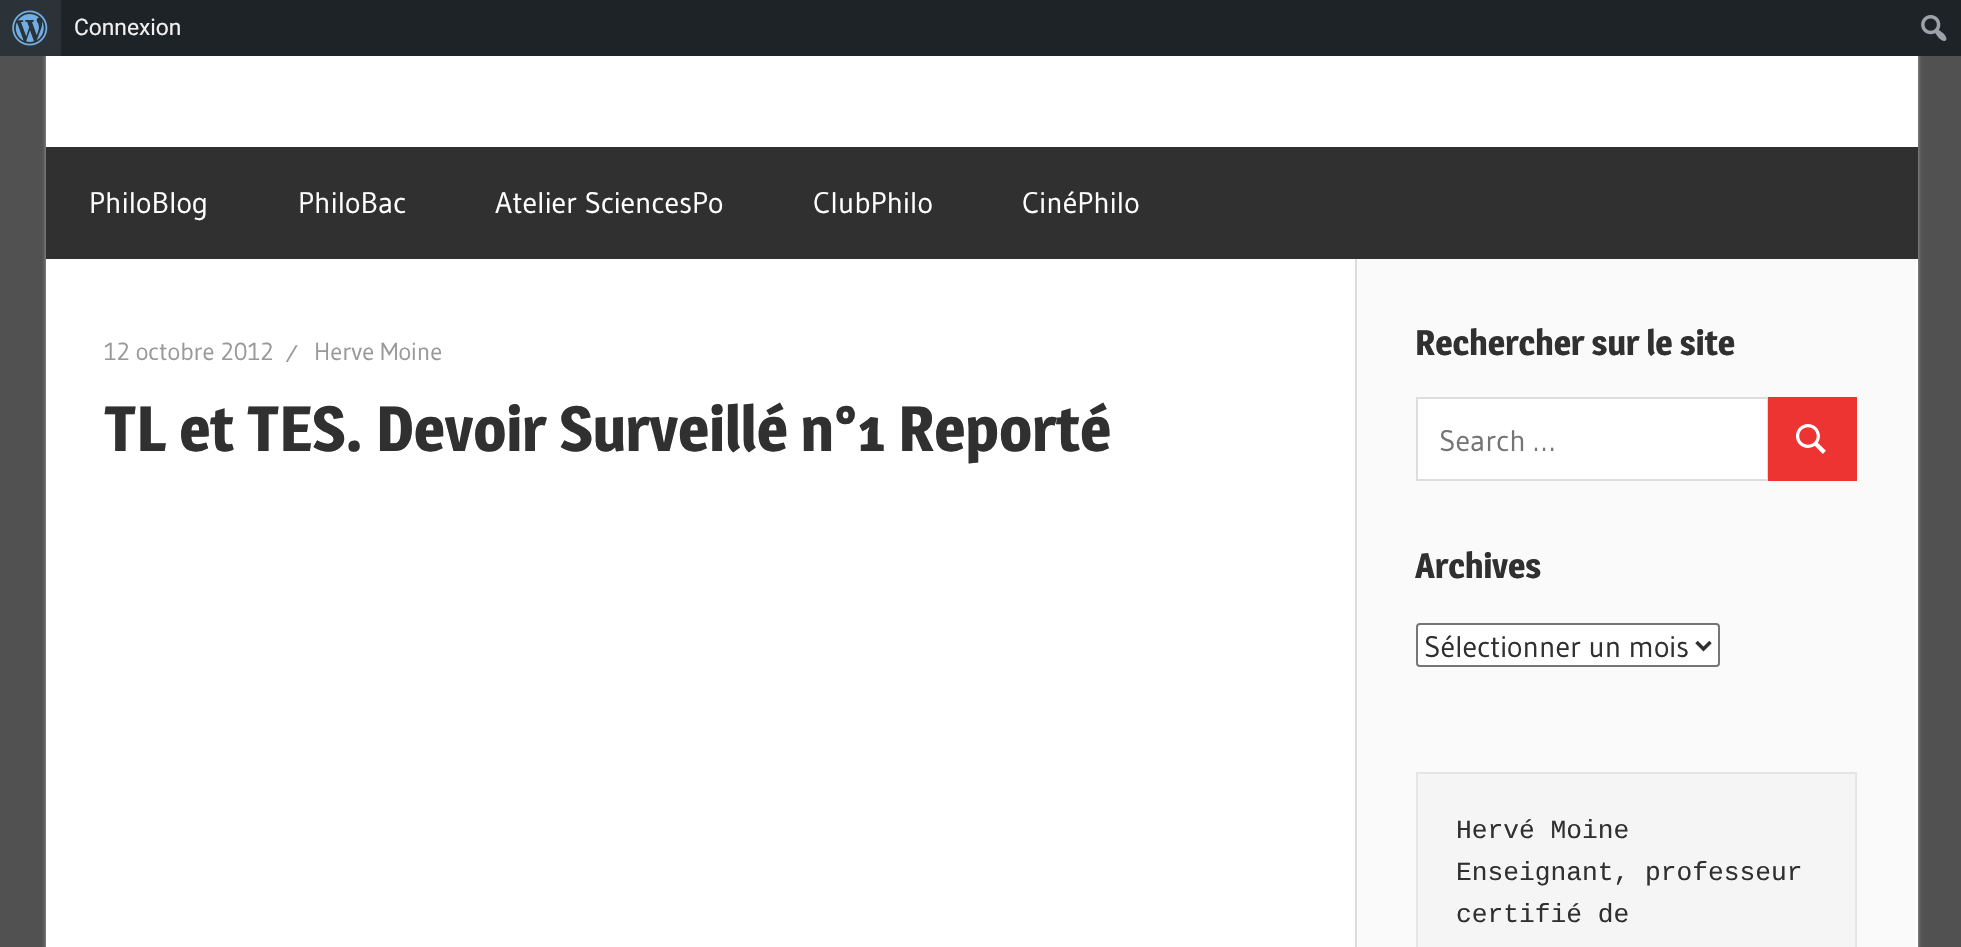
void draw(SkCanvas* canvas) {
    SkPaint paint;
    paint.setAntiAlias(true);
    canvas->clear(0xFF515151);
    paint.setColor(0xFFAAAAAA);
    paint.setMaskFilter(SkMaskFilter::MakeBlur(kNormal_SkBlurStyle, 2));
    canvas->drawRect(SkRect::MakeXYWH(46, -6, 1872, 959), paint);
    paint.setMaskFilter(nullptr);
    paint.setColor(0xFF1D2327);
    canvas->drawRect(SkRect::MakeXYWH(61, 0, 1900, 56), paint);
    paint.setColor(0xFF2C3338);
    canvas->drawRect(SkRect::MakeXYWH(0, 0, 61, 56), paint);
    canvas->drawImageRect(SkImages::DeferredFromEncodedData(SkData::MakeFromFileName("img1.png")), SkRect::MakeXYWH(12, 10, 36, 36), SkSamplingOptions());
    SkFont font1(fontMgr->matchFamilyStyle("Roboto", SkFontStyle::Normal()), 22.75f);
    font1.setSubpixel(true);
    paint.setColor(0xFFF0F0F1);
    canvas->drawString("Connexion", 74, 35, font1, paint);
    canvas->drawImageRect(SkImages::DeferredFromEncodedData(SkData::MakeFromFileName("img2.png")), SkRect::MakeXYWH(1921, 15, 26, 26), SkSamplingOptions());
    paint.setColor(0xFFFFFFFF);
    canvas->drawRect(SkRect::MakeXYWH(46, 56, 1872, 891), paint);
    paint.setColor(0xFF303030);
    canvas->drawRect(SkRect::MakeXYWH(46, 147, 1872, 112), paint);
    SkFont font2(fontMgr->matchFamilyStyle("Gudea", SkFontStyle::Normal()), 29.75f);
    font2.setSubpixel(true);
    paint.setColor(0xFFFFFFFF);
    canvas->drawString("PhiloBlog", 89, 213, font2, paint);
    canvas->drawString("PhiloBac", 298, 213, font2, paint);
    canvas->drawString("Atelier SciencesPo", 495, 213, font2, paint);
    canvas->drawString("ClubPhilo", 813, 213, font2, paint);
    canvas->drawString("CinéPhilo", 1022, 213, font2, paint);
    SkFont font3(fontMgr->matchFamilyStyle("Gudea", SkFontStyle::Normal()), 24.5f);
    font3.setSubpixel(true);
    paint.setColor(0xFF999999);
    canvas->drawString("12 octobre 2012", 104, 360, font3, paint);
    canvas->drawString("⁄", 286, 362, font3, paint);
    canvas->drawString("Herve Moine", 314, 360, font3, paint);
    SkFont font4(fontMgr->matchFamilyStyle("Magra", SkFontStyle(600, SkFontStyle::kNormal_Width, SkFontStyle::kUpright_Slant)), 63);
    font4.setSubpixel(true);
    paint.setColor(0xFF303030);
    canvas->drawString("TL et TES. Devoir Surveillé n°1 Reporté", 104, 451, font4, paint);
    paint.setColor(0xFFFAFAFA);
    canvas->drawRect(SkRect::MakeXYWH(1357, 259, 559, 688), paint);
    paint.setColor(0xFFDDDDDD);
    canvas->drawRect(SkRect::MakeXYWH(1355, 259, 2, 688), paint);
    SkFont font5(fontMgr->matchFamilyStyle("Magra", SkFontStyle(600, SkFontStyle::kNormal_Width, SkFontStyle::kUpright_Slant)), 35);
    font5.setSubpixel(true);
    paint.setColor(0xFF303030);
    canvas->drawString("Rechercher sur le site", 1415, 355, font5, paint);
    paint.setColor(0xFFFFFFFF);
    canvas->drawRect(SkRect::MakeXYWH(1417, 398, 351, 82), paint);
    paint.setStyle(SkPaint::kStroke_Style);
    paint.setStrokeWidth(2);
    paint.setColor(0xFFDDDDDD);
    canvas->drawRect(SkRect::MakeXYWH(1417, 398, 351, 82), paint);
    paint.setStyle(SkPaint::kFill_Style);
    paint.setColor(0xFF757575);
    canvas->drawString("Search …", 1439, 451, font2, paint);
    paint.setColor(0xFFEE3333);
    canvas->drawRect(SkRect::MakeXYWH(1768, 397, 89, 84), paint);
    canvas->drawImageRect(SkImages::DeferredFromEncodedData(SkData::MakeFromFileName("img3.png")), SkRect::MakeXYWH(1796, 424, 30, 30), SkSamplingOptions());
    paint.setColor(0xFF303030);
    canvas->drawString("Archives", 1415, 578, font5, paint);
    paint.setColor(0xFFFFFFFF);
    canvas->drawRoundRect(SkRect::MakeXYWH(1417, 624, 302, 42), 3, 3, paint);
    paint.setStyle(SkPaint::kStroke_Style);
    paint.setColor(0xFF767676);
    canvas->drawRoundRect(SkRect::MakeXYWH(1417, 624, 302, 42), 3, 3, paint);
    paint.setStrokeWidth(3.5f);
    paint.setColor(0xFF303030);
    canvas->drawPath(SkPathBuilder().moveTo(1696.5f, 642).lineTo(1703.5f, 649).lineTo(1710.5f, 642).detach(), paint);
    paint.setStyle(SkPaint::kFill_Style);
    canvas->drawString("Sélectionner un mois", 1424, 657, font2, paint);
    paint.setColor(0xFFF5F5F5);
    canvas->drawRect(SkRect::MakeXYWH(1417, 773, 439, 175), paint);
    paint.setStyle(SkPaint::kStroke_Style);
    paint.setStrokeWidth(2);
    paint.setColor(0xFFE5E5E5);
    canvas->drawRect(SkRect::MakeXYWH(1417, 773, 439, 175), paint);
    SkFont font6(fontMgr->matchFamilyStyle("Liberation Mono", SkFontStyle::Normal()), 26.25f);
    font6.setSubpixel(true);
    paint.setStyle(SkPaint::kFill_Style);
    paint.setColor(0xFF303030);
    canvas->drawString("Hervé Moine", 1456, 838, font6, paint);
    canvas->drawString("Enseignant, professeur", 1456, 880, font6, paint);
    canvas->drawString("certifié de", 1456, 922, font6, paint);
}
